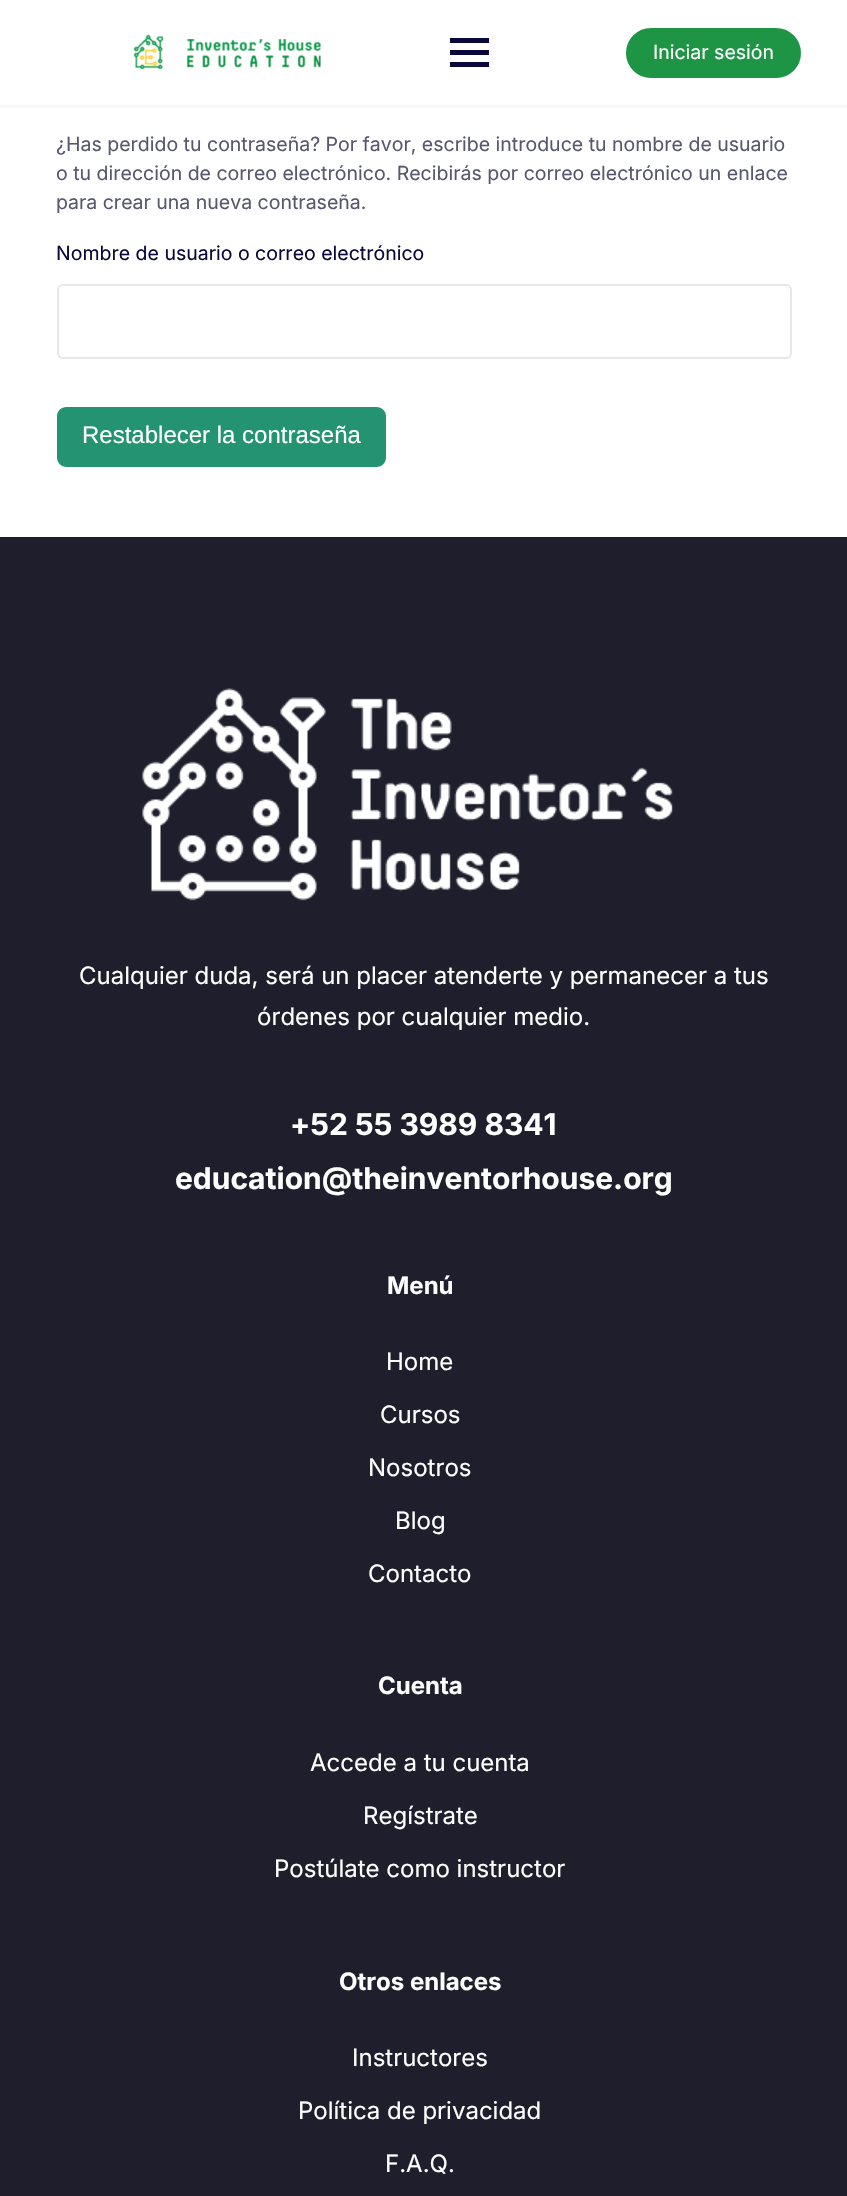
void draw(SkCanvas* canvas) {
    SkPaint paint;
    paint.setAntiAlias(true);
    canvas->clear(0xFFFFFFFF);
    paint.setColor(0xFFF8F8F8);
    canvas->drawRect(SkRect::MakeXYWH(0, 105, 847, 3), paint);
    canvas->drawImageRect(SkImages::DeferredFromEncodedData(SkData::MakeFromFileName("img1.png")), SkRect::MakeXYWH(133, 34, 188, 35), SkSamplingOptions());
    paint.setColor(0xFF0A083B);
    canvas->drawRect(SkRect::MakeXYWH(450, 50, 39, 5), paint);
    canvas->drawRect(SkRect::MakeXYWH(450, 38, 39, 5), paint);
    canvas->drawRect(SkRect::MakeXYWH(450, 62, 39, 5), paint);
    paint.setColor(0xFF1E9544);
    canvas->drawRoundRect(SkRect::MakeXYWH(625, 27, 177, 52), 26, 26, paint);
    paint.setStyle(SkPaint::kStroke_Style);
    paint.setStrokeWidth(2);
    paint.setColor(0xFFFFFFFF);
    canvas->drawRoundRect(SkRect::MakeXYWH(625, 27, 177, 52), 26, 26, paint);
    SkFont font1(fontMgr->matchFamilyStyle("Inter", SkFontStyle::Normal()), 19.5f);
    font1.setSubpixel(true);
    paint.setStyle(SkPaint::kFill_Style);
    canvas->drawString("Iniciar sesión", 653, 59, font1, paint);
    paint.setColor(0xFF57586E);
    canvas->drawString("¿Has perdido tu contraseña? Por favor, escribe introduce tu nombre de usuario", 56, 151, font1, paint);
    canvas->drawString("o tu dirección de correo electrónico. Recibirás por correo electrónico un enlace", 56, 180, font1, paint);
    canvas->drawString("para crear una nueva contraseña.", 56, 209, font1, paint);
    paint.setColor(0xFF0A083B);
    canvas->drawString("Nombre de usuario o correo electrónico", 56, 260, font1, paint);
    paint.setStyle(SkPaint::kStroke_Style);
    paint.setColor(0xFFE7E6EB);
    canvas->drawRoundRect(SkRect::MakeXYWH(58, 285, 733, 73), 5, 5, paint);
    paint.setStyle(SkPaint::kFill_Style);
    paint.setColor(0xFF239371);
    canvas->drawRoundRect(SkRect::MakeXYWH(58, 408, 327, 58), 8, 8, paint);
    paint.setStyle(SkPaint::kStroke_Style);
    canvas->drawRoundRect(SkRect::MakeXYWH(58, 408, 327, 58), 8, 8, paint);
    SkFont font2(fontMgr->matchFamilyStyle("Liberation Sans", SkFontStyle::Normal()), 24);
    font2.setSubpixel(true);
    paint.setStyle(SkPaint::kFill_Style);
    paint.setColor(0xFFFFFFFF);
    canvas->drawString("Restablecer la contraseña", 82, 443, font2, paint);
    paint.setColor(0xFF1E1E2C);
    canvas->drawRect(SkRect::MakeXYWH(0, 537, 847, 1659), paint);
    canvas->drawImageRect(SkImages::DeferredFromEncodedData(SkData::MakeFromFileName("img2.png")), SkRect::MakeXYWH(142, 688, 531, 213), SkSamplingOptions());
    SkFont font3(fontMgr->matchFamilyStyle("Inter", SkFontStyle::Normal()), 24);
    font3.setSubpixel(true);
    paint.setColor(0xFFFFFFFF);
    canvas->drawString("Cualquier duda, será un placer atenderte y permanecer a tus", 79, 984, font3, paint);
    canvas->drawString("órdenes por cualquier medio.", 257, 1025, font3, paint);
    SkFont font4(fontMgr->matchFamilyStyle("Inter", SkFontStyle::Bold()), 30);
    font4.setSubpixel(true);
    canvas->drawString("+52 55 3989 8341", 290, 1135, font4, paint);
    canvas->drawString("education@theinventorhouse.org", 175, 1189, font4, paint);
    SkFont font5(fontMgr->matchFamilyStyle("Inter", SkFontStyle::Bold()), 24);
    font5.setSubpixel(true);
    canvas->drawString("Menú", 387, 1294, font5, paint);
    canvas->drawString("Home", 386, 1370, font3, paint);
    canvas->drawString("Cursos", 380, 1423, font3, paint);
    canvas->drawString("Nosotros", 368, 1476, font3, paint);
    canvas->drawString("Blog", 395, 1529, font3, paint);
    canvas->drawString("Contacto", 368, 1582, font3, paint);
    canvas->drawString("Cuenta", 378, 1694, font5, paint);
    canvas->drawString("Accede a tu cuenta", 310, 1771, font3, paint);
    canvas->drawString("Regístrate", 363, 1824, font3, paint);
    canvas->drawString("Postúlate como instructor", 274, 1877, font3, paint);
    canvas->drawString("Otros enlaces", 339, 1990, font5, paint);
    canvas->drawString("Instructores", 352, 2066, font3, paint);
    canvas->drawString("Política de privacidad", 298, 2119, font3, paint);
    canvas->drawString("F.A.Q.", 385, 2172, font3, paint);
}
